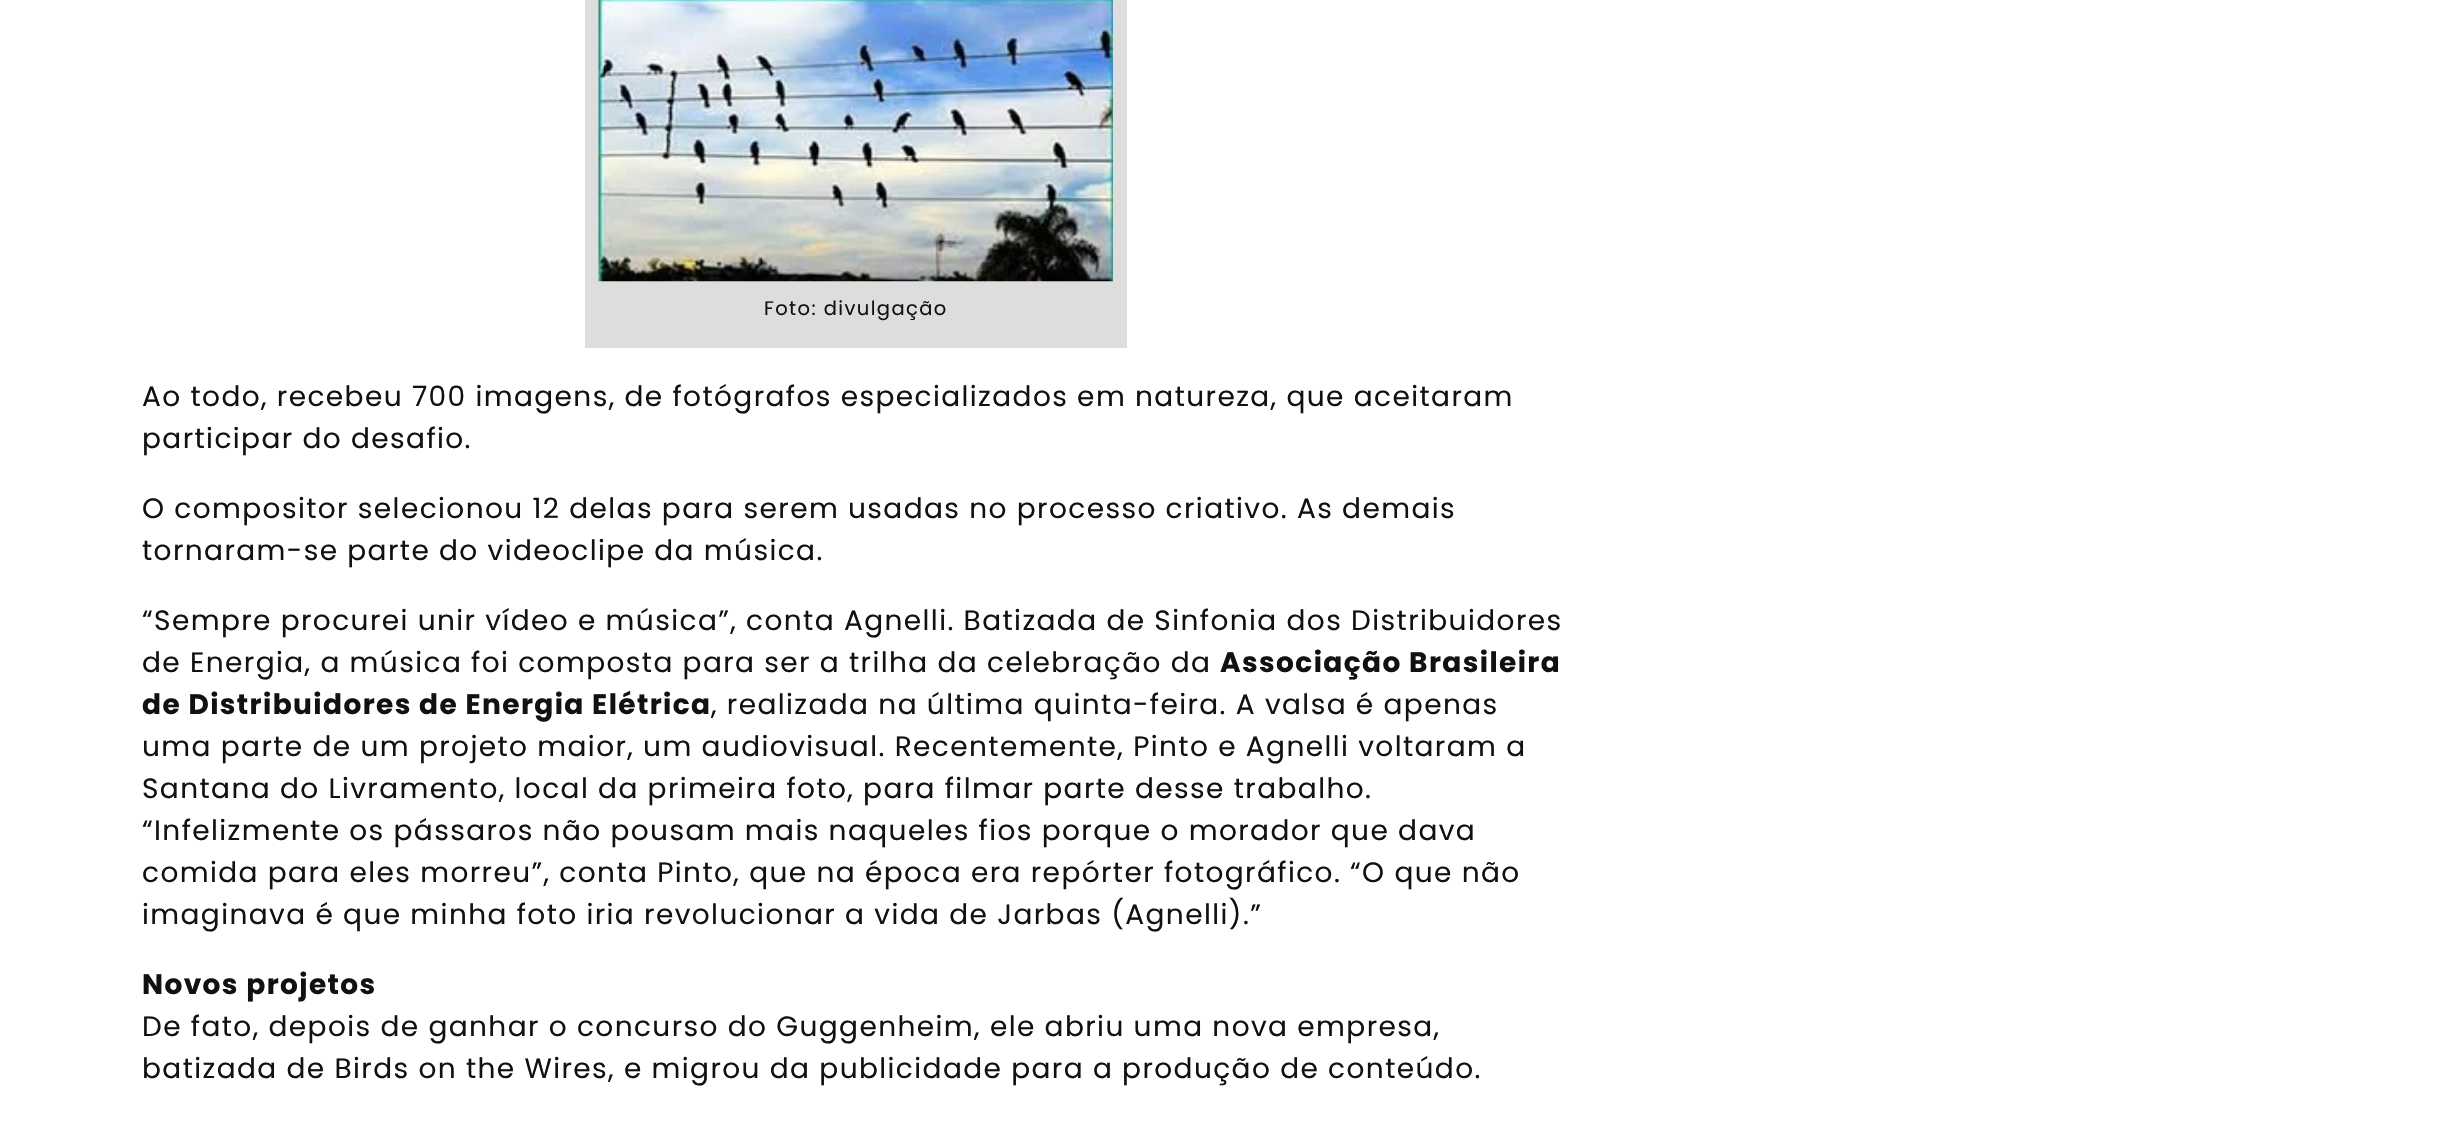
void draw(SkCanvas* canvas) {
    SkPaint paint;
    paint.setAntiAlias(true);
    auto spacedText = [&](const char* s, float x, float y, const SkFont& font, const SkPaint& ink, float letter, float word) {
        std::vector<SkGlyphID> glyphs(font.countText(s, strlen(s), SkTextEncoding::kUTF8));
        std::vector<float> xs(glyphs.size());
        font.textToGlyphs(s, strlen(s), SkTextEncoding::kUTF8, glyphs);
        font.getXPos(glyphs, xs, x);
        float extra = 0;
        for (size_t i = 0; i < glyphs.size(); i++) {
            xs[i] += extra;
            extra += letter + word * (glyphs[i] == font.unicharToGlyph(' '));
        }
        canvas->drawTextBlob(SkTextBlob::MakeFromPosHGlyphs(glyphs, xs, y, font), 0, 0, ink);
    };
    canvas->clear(0xFFFFFFFF);
    paint.setColor(0xFFDDDDDD);
    canvas->drawRect(SkRect::MakeXYWH(585, 0, 542, 348), paint);
    canvas->drawImageRect(SkImages::DeferredFromEncodedData(SkData::MakeFromFileName("img1.png")), SkRect::MakeXYWH(598, 0, 515, 282), SkSamplingOptions());
    SkFont font1(fontMgr->matchFamilyStyle("Poppins", SkFontStyle::Normal()), 19.5f);
    font1.setSubpixel(true);
    paint.setColor(0xFF111111);
    spacedText("Foto: divulgação", 764, 315, font1, paint, 1.4f, 0);
    SkFont font2(fontMgr->matchFamilyStyle("Poppins", SkFontStyle::Normal()), 28);
    font2.setSubpixel(true);
    spacedText("Ao todo, recebeu 700 imagens, de fotógrafos especializados em natureza, que aceitaram", 142, 406, font2, paint, 1.4f, 0);
    spacedText("participar do desafio.", 142, 448, font2, paint, 1.4f, 0);
    spacedText("O compositor selecionou 12 delas para serem usadas no processo criativo. As demais", 142, 518, font2, paint, 1.4f, 0);
    spacedText("tornaram-se parte do videoclipe da música.", 142, 560, font2, paint, 1.4f, 0);
    spacedText("“Sempre procurei unir vídeo e música”, conta Agnelli. Batizada de Sinfonia dos Distribuidores", 142, 630, font2, paint, 1.4f, 0);
    spacedText("de Energia, a música foi composta para ser a trilha da celebração da", 142, 672, font2, paint, 1.4f, 0);
    SkFont font3(fontMgr->matchFamilyStyle("Poppins", SkFontStyle::Bold()), 28);
    font3.setSubpixel(true);
    spacedText("Associação Brasileira", 1220, 672, font3, paint, 1.4f, 0);
    spacedText("de Distribuidores de Energia Elétrica", 142, 714, font3, paint, 1.4f, 0);
    spacedText(", realizada na última quinta-feira. A valsa é apenas", 711, 714, font2, paint, 1.4f, 0);
    spacedText("uma parte de um projeto maior, um audiovisual. Recentemente, Pinto e Agnelli voltaram a", 142, 756, font2, paint, 1.4f, 0);
    spacedText("Santana do Livramento, local da primeira foto, para filmar parte desse trabalho.", 142, 798, font2, paint, 1.4f, 0);
    spacedText("“Infelizmente os pássaros não pousam mais naqueles fios porque o morador que dava", 142, 840, font2, paint, 1.4f, 0);
    spacedText("comida para eles morreu”, conta Pinto, que na época era repórter fotográfico. “O que não", 142, 882, font2, paint, 1.4f, 0);
    spacedText("imaginava é que minha foto iria revolucionar a vida de Jarbas (Agnelli).”", 142, 924, font2, paint, 1.4f, 0);
    spacedText("Novos projetos", 142, 994, font3, paint, 1.4f, 0);
    spacedText("De fato, depois de ganhar o concurso do Guggenheim, ele abriu uma nova empresa,", 142, 1036, font2, paint, 1.4f, 0);
    spacedText("batizada de Birds on the Wires, e migrou da publicidade para a produção de conteúdo.", 142, 1078, font2, paint, 1.4f, 0);
}
